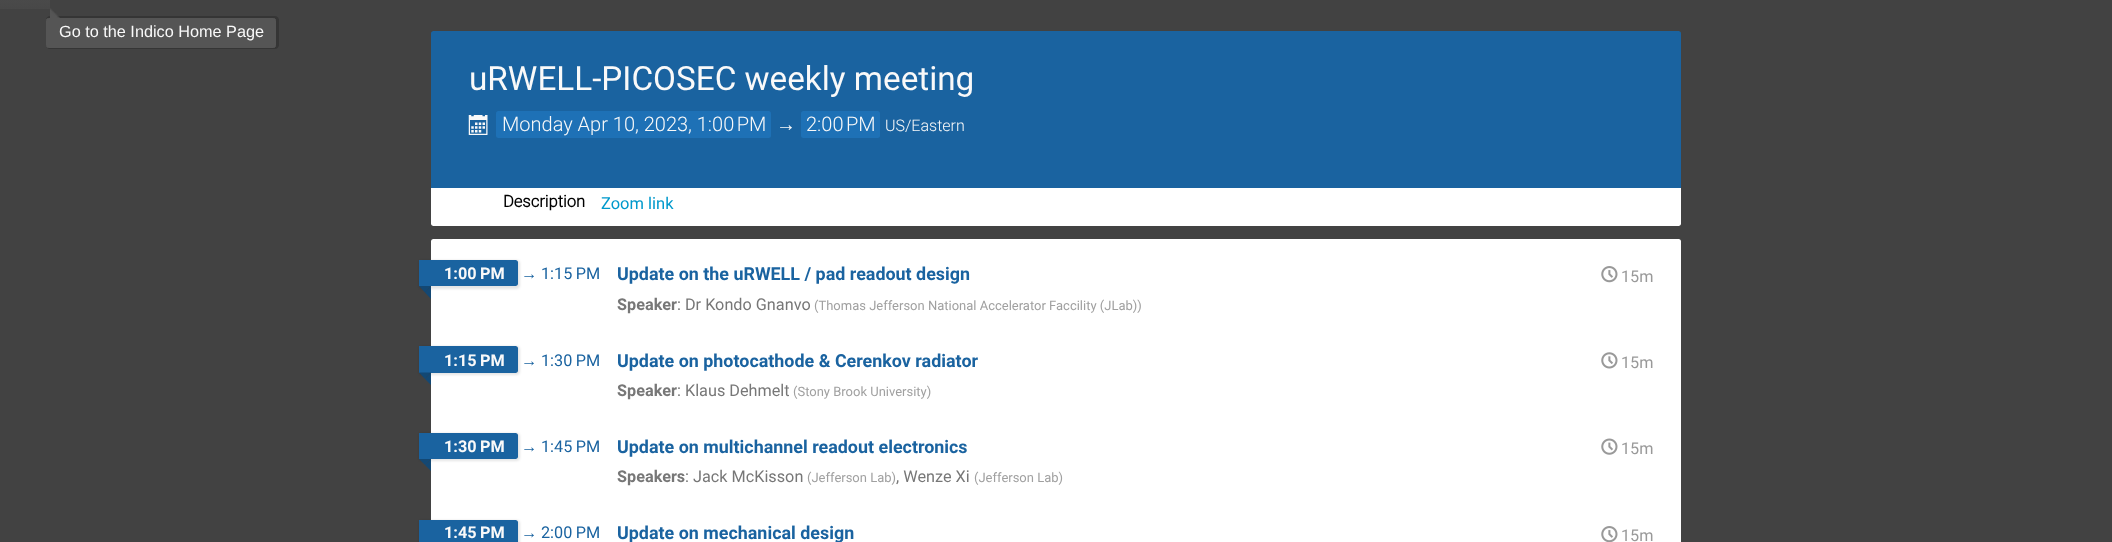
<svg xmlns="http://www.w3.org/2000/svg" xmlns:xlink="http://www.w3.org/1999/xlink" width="2112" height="542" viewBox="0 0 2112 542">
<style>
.cls-1{font:16.25px 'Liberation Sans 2';fill:#f9f9f9}
.cls-2{font:33.3px Roboto;fill:#f9f9f9}
.cls-3{font:300 20px Roboto;fill:#f9f9f9}
.cls-4{font:20px Liberation Sans;fill:#f9f9f9}
.cls-5{font:300 16px Roboto;fill:#f9f9f9}
.cls-6{font:bold 16.5px Roboto;fill:#000000}
.cls-7{font:16.5px Roboto;fill:#0099cc}
.cls-8{font:bold 16.25px 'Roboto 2';fill:#f9f9f9}
.cls-9{font:16.25px Liberation Sans;fill:#1a63a0}
.cls-10{font:16.25px Roboto;fill:#1a63a0}
.cls-11{font:bold 17.9px 'Roboto 2';fill:#1a63a0}
.cls-12{font:16.25px Roboto;fill:#999999}
.cls-13{font:bold 16.25px 'Roboto 2';fill:#777777}
.cls-14{font:16.25px Roboto;fill:#777777}
.cls-15{font:13px Roboto;fill:#a0a0a0}
</style>
<defs>
<linearGradient id="g1" gradientUnits="userSpaceOnUse" x1="25" y1="-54" x2="25" y2="9"><stop offset="0" stop-color="#555555"/><stop offset="1" stop-color="#484848"/></linearGradient>
</defs>
<rect width="100%" height="100%" fill="#424242"/>
<rect fill="url(#g1)" x="0" y="0" width="50" height="9"/>
<path fill="#353535" fill-rule="evenodd" d="M50 16C48 16 46 18 46 20V45C46 47 48 49 50 49H275C277 49 279 47 279 45V20C279 18 277 16 275 16ZM49 18C47 18 46 19 46 20V45C46 46 47 48 49 48H274C275 48 276 46 276 45V20C276 19 275 18 274 18Z"/>
<rect fill="#555555" stroke="#555555" x="46.5" y="18.5" width="229" height="29" rx="2"/>
<image xlink:href="image0.png" x="50" y="8" width="10" height="10"/>
<path fill="#1a63a0" d="M433.5 31H1678.5C1680 31 1681 32 1681 33.5V188H431V33.5C431 32 432 31 433.5 31Z"/>
<image xlink:href="image1.png" x="468" y="115" width="20" height="20"/>
<rect fill="#1e71b6" x="496" y="111" width="275" height="27" rx="2.5"/>
<rect fill="#1e71b6" x="801" y="111" width="79" height="27" rx="2.5"/>
<path fill="#ffffff" d="M431 188H1681V223.5C1681 225 1680 226 1678.5 226H433.5C432 226 431 225 431 223.5Z"/>
<rect fill="#ffffff" x="431" y="239" width="1250" height="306" rx="2.5"/>
<rect fill="#000000" fill-opacity="0.1" filter="blur(1px)" x="419" y="260" width="101" height="29" rx="4"/>
<path fill="#1a63a0" d="M419 260H515.5C517 260 518 261 518 262.5V283.5C518 285 517 286 515.5 286H419Z"/>
<path fill="#134874" d="M419 286H431L425 292.5Z"/>
<path fill="#134874" d="M431 286V299L425 292.5Z"/>
<image xlink:href="image2.png" x="1601" y="266" width="17" height="17"/>
<rect fill="#000000" fill-opacity="0.1" filter="blur(1px)" x="419" y="346" width="101" height="29" rx="4"/>
<path fill="#1a63a0" d="M419 346H515.5C517 346 518 347 518 348.5V370.5C518 372 517 373 515.5 373H419Z"/>
<path fill="#134874" d="M419 372.5H431L425 379Z"/>
<path fill="#134874" d="M431 372.5V385L425 379Z"/>
<image xlink:href="image3.png" x="1601" y="352" width="17" height="17"/>
<rect fill="#000000" fill-opacity="0.1" filter="blur(1px)" x="419" y="433" width="101" height="28" rx="4"/>
<path fill="#1a63a0" d="M419 433H515.5C517 433 518 434 518 435.5V456.5C518 458 517 459 515.5 459H419Z"/>
<path fill="#134874" d="M419 459H431L425 465Z"/>
<path fill="#134874" d="M431 459V471L425 465Z"/>
<image xlink:href="image4.png" x="1601" y="438" width="17" height="17"/>
<rect fill="#000000" fill-opacity="0.1" filter="blur(1px)" x="419" y="520" width="101" height="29" rx="4"/>
<path fill="#1a63a0" d="M419 520H515.5C517 520 518 521 518 522.5V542.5C518 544 517 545 515.5 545H419Z"/>
<image xlink:href="image5.png" x="1601" y="526" width="17" height="16"/>
<text class="cls-1" x="59" y="37">Go to the Indico Home Page</text>
<text class="cls-2" x="469" y="90">uRWELL-PICOSEC weekly meeting</text>
<text class="cls-3" x="502" y="131">Monday Apr 10, 2023, 1:00 PM</text>
<text class="cls-4" x="776" y="131">→</text>
<text class="cls-3" x="806" y="131">2:00 PM</text>
<text class="cls-5" x="885" y="131">US/Eastern</text>
<text class="cls-6" x="503" y="207">Description</text>
<text class="cls-7" x="601" y="209">Zoom link</text>
<text class="cls-8" x="444" y="279">1:00 PM</text>
<text class="cls-9" x="521" y="279">→</text>
<text class="cls-10" x="541" y="279">1:15 PM</text>
<text class="cls-11" x="617" y="280">Update on the uRWELL / pad readout design</text>
<text class="cls-12" x="1621" y="282">15m</text>
<text class="cls-13" x="617" y="310">Speaker</text>
<text class="cls-14" x="677" y="310">: Dr Kondo Gnanvo</text>
<text class="cls-15" x="814" y="310">(Thomas Jefferson National Accelerator Faccility (JLab))</text>
<text class="cls-8" x="444" y="366">1:15 PM</text>
<text class="cls-9" x="521" y="366">→</text>
<text class="cls-10" x="541" y="366">1:30 PM</text>
<text class="cls-11" x="617" y="367">Update on photocathode &amp; Cerenkov radiator</text>
<text class="cls-12" x="1621" y="368">15m</text>
<text class="cls-13" x="617" y="396">Speaker</text>
<text class="cls-14" x="677" y="396">: Klaus Dehmelt</text>
<text class="cls-15" x="793" y="396">(Stony Brook University)</text>
<text class="cls-8" x="444" y="452">1:30 PM</text>
<text class="cls-9" x="521" y="452">→</text>
<text class="cls-10" x="541" y="452">1:45 PM</text>
<text class="cls-11" x="617" y="453">Update on multichannel readout electronics</text>
<text class="cls-12" x="1621" y="454">15m</text>
<text class="cls-13" x="617" y="482">Speakers</text>
<text class="cls-14" x="685" y="482">: Jack McKisson</text>
<text class="cls-15" x="807" y="482">(Jefferson Lab)</text>
<text class="cls-14" x="896" y="482">, Wenze Xi</text>
<text class="cls-15" x="974" y="482">(Jefferson Lab)</text>
<text class="cls-8" x="444" y="538">1:45 PM</text>
<text class="cls-9" x="521" y="538">→</text>
<text class="cls-10" x="541" y="538">2:00 PM</text>
<text class="cls-11" x="617" y="539">Update on mechanical design</text>
<text class="cls-12" x="1621" y="541">15m</text>
</svg>
